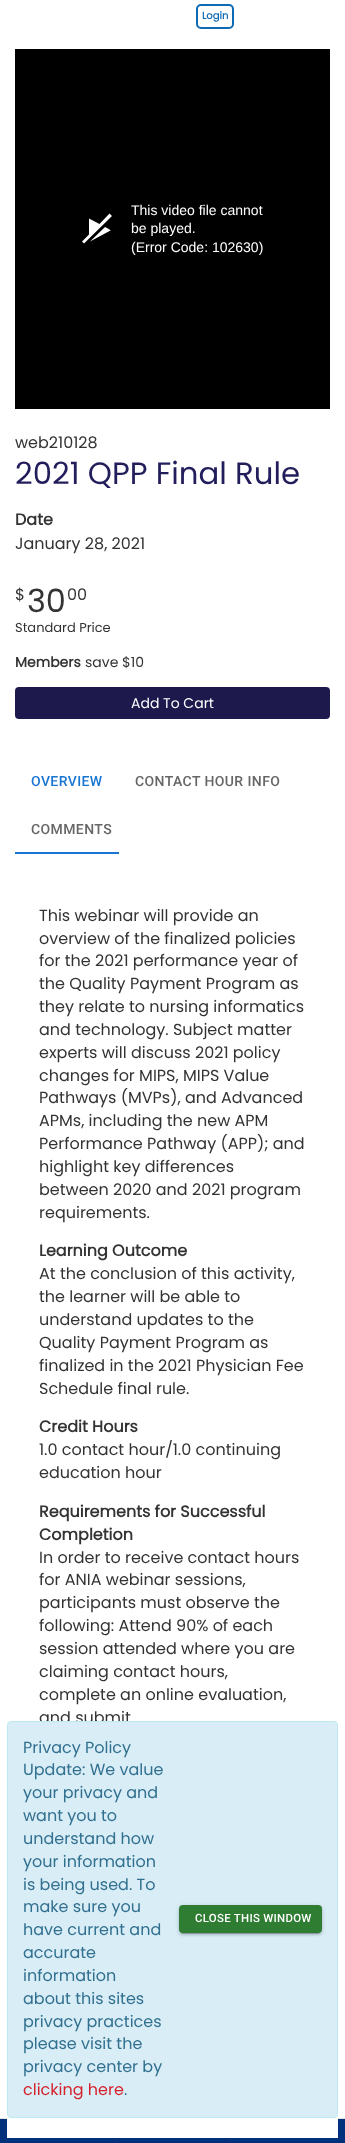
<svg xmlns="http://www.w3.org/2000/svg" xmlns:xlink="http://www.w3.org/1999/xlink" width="345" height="2143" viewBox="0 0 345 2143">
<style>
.cls-1{font:bold 10px Poppins;fill:#0f6ab4}
.cls-2{font:14px Liberation Sans;fill:#ffffff}
.cls-3{font:16px Poppins;fill:#333333}
.cls-4{font:30.75px Poppins;fill:#221d5b}
.cls-5{font:bold 16px Poppins;fill:#333333}
.cls-6{font:32px Poppins;fill:#333333}
.cls-7{font:13px Poppins;fill:#333333}
.cls-8{font:bold 14px Poppins;fill:#333333}
.cls-9{font:14px Poppins;fill:#333333}
.cls-10{font:14px Poppins;fill:#ffffff}
.cls-11{font:500 14px Roboto;letter-spacing:0.4px;fill:#1976d2}
.cls-12{font:500 14px Roboto;letter-spacing:0.4px;fill:#666666}
.cls-13{font:16px Poppins;fill:#31708f}
.cls-14{font:16px Poppins;fill:#d5222b}
.cls-15{font:500 11.4px Roboto;letter-spacing:0.3px;fill:#ffffff}
</style>
<rect width="100%" height="100%" fill="#ffffff"/>
<rect fill="none" stroke="#0f6ab4" stroke-width="2" x="197" y="5" width="36" height="23" rx="4"/>
<rect fill="#000000" x="15" y="49" width="315" height="360"/>
<path fill="#ffffff" d="M110.5 230.5L90 241.5L105 227C110.5 230 111.5 230.5 110.5 230.5ZM109.5 213.5L99.5 224L89 218.5V234.5L82 241.5L84 243.5L112 216Z"/>
<rect fill="#1d194d" x="15" y="687" width="315" height="32" rx="4"/>
<rect fill="#1976d2" x="15" y="852" width="104" height="2"/>
<rect fill="#e4e4e4" x="0" y="2118" width="345" height="1"/>
<rect fill="#00317d" x="0" y="2119" width="345" height="24"/>
<path fill="none" stroke="#143c78" stroke-dasharray="1 1" d="M115.5 2119V2143"/>
<path fill="none" stroke="#143c78" stroke-dasharray="1 1" d="M230.5 2119V2143"/>
<text class="cls-1" x="202" y="19">Login</text>
<text class="cls-2"><tspan x="131" y="215">This video file cannot</tspan><tspan x="131" y="233">be played.</tspan><tspan x="131" y="252">(Error Code: 102630)</tspan></text>
<text class="cls-3" x="15" y="448">web210128</text>
<text class="cls-4" x="15" y="484">2021 QPP Final Rule</text>
<text class="cls-5" x="15" y="525">Date</text>
<text class="cls-3" x="15" y="549">January 28, 2021</text>
<text class="cls-3" x="15" y="600">$</text>
<text class="cls-6" x="27" y="612">30</text>
<text class="cls-3" x="67" y="600">00</text>
<text class="cls-7" x="15" y="632">Standard Price</text>
<text class="cls-8" x="15" y="667">Members</text>
<text class="cls-9" x="85" y="667">save $10</text>
<text class="cls-10" x="131" y="708">Add To Cart</text>
<text class="cls-11" x="31" y="786">OVERVIEW</text>
<text class="cls-12" x="135" y="786">CONTACT HOUR INFO</text>
<text class="cls-12" x="31" y="834">COMMENTS</text>
<text class="cls-3"><tspan x="39" y="921">This webinar will provide an</tspan><tspan x="39" y="944">overview of the finalized policies</tspan><tspan x="39" y="966">for the 2021 performance year of</tspan><tspan x="39" y="989">the Quality Payment Program as</tspan><tspan x="39" y="1012">they relate to nursing informatics</tspan><tspan x="39" y="1035">and technology. Subject matter</tspan><tspan x="39" y="1058">experts will discuss 2021 policy</tspan><tspan x="39" y="1081">changes for MIPS, MIPS Value</tspan><tspan x="39" y="1103">Pathways (MVPs), and Advanced</tspan><tspan x="39" y="1126">APMs, including the new APM</tspan><tspan x="39" y="1149">Performance Pathway (APP); and</tspan><tspan x="39" y="1172">highlight key differences</tspan><tspan x="39" y="1195">between 2020 and 2021 program</tspan><tspan x="39" y="1218">requirements.</tspan></text>
<text class="cls-5" x="39" y="1256">Learning Outcome</text>
<text class="cls-3"><tspan x="39" y="1279">At the conclusion of this activity,</tspan><tspan x="39" y="1302">the learner will be able to</tspan><tspan x="39" y="1325">understand updates to the</tspan><tspan x="39" y="1348">Quality Payment Program as</tspan><tspan x="39" y="1371">finalized in the 2021 Physician Fee</tspan><tspan x="39" y="1394">Schedule final rule.</tspan></text>
<text class="cls-5" x="39" y="1432">Credit Hours</text>
<text class="cls-3"><tspan x="39" y="1455">1.0 contact hour/1.0 continuing</tspan><tspan x="39" y="1478">education hour</tspan></text>
<text class="cls-5"><tspan x="39" y="1517">Requirements for Successful</tspan><tspan x="39" y="1540">Completion</tspan></text>
<text class="cls-3"><tspan x="39" y="1563">In order to receive contact hours</tspan><tspan x="39" y="1585">for ANIA webinar sessions,</tspan><tspan x="39" y="1608">participants must observe the</tspan><tspan x="39" y="1631">following: Attend 90% of each</tspan><tspan x="39" y="1654">session attended where you are</tspan><tspan x="39" y="1677">claiming contact hours,</tspan><tspan x="39" y="1700">complete an online evaluation,</tspan><tspan x="39" y="1723">and submit</tspan></text>
<rect fill="#ffffff" x="7" y="1721" width="331" height="417"/>
<rect fill="#d9edf7" stroke="#bce8f1" x="7.5" y="1721.5" width="330" height="396" rx="3.5"/>
<text class="cls-13"><tspan x="23" y="1753">Privacy Policy</tspan><tspan x="23" y="1775">Update: We value</tspan><tspan x="23" y="1798">your privacy and</tspan><tspan x="23" y="1821">want you to</tspan><tspan x="23" y="1844">understand how</tspan><tspan x="23" y="1867">your information</tspan><tspan x="23" y="1890">is being used. To</tspan><tspan x="23" y="1912">make sure you</tspan><tspan x="23" y="1935">have current and</tspan><tspan x="23" y="1958">accurate</tspan><tspan x="23" y="1981">information</tspan><tspan x="23" y="2004">about this sites</tspan><tspan x="23" y="2027">privacy practices</tspan><tspan x="23" y="2049">please visit the</tspan><tspan x="23" y="2072">privacy center by</tspan></text>
<text class="cls-14" x="23" y="2095">clicking here</text>
<text class="cls-13" x="124" y="2095">.</text>
<rect fill="#000000" fill-opacity="0.12" filter="blur(2.5px)" x="179" y="1906" width="143" height="28" rx="4"/>
<rect fill="#000000" fill-opacity="0.14" filter="blur(1px)" x="179" y="1907" width="143" height="28" rx="4"/>
<rect fill="#000000" fill-opacity="0.2" filter="blur(0.5px)" x="181" y="1910" width="139" height="24" rx="2"/>
<rect fill="#2e7d32" x="179" y="1905" width="143" height="28" rx="4"/>
<text class="cls-15" x="195" y="1922">CLOSE THIS WINDOW</text>
</svg>
